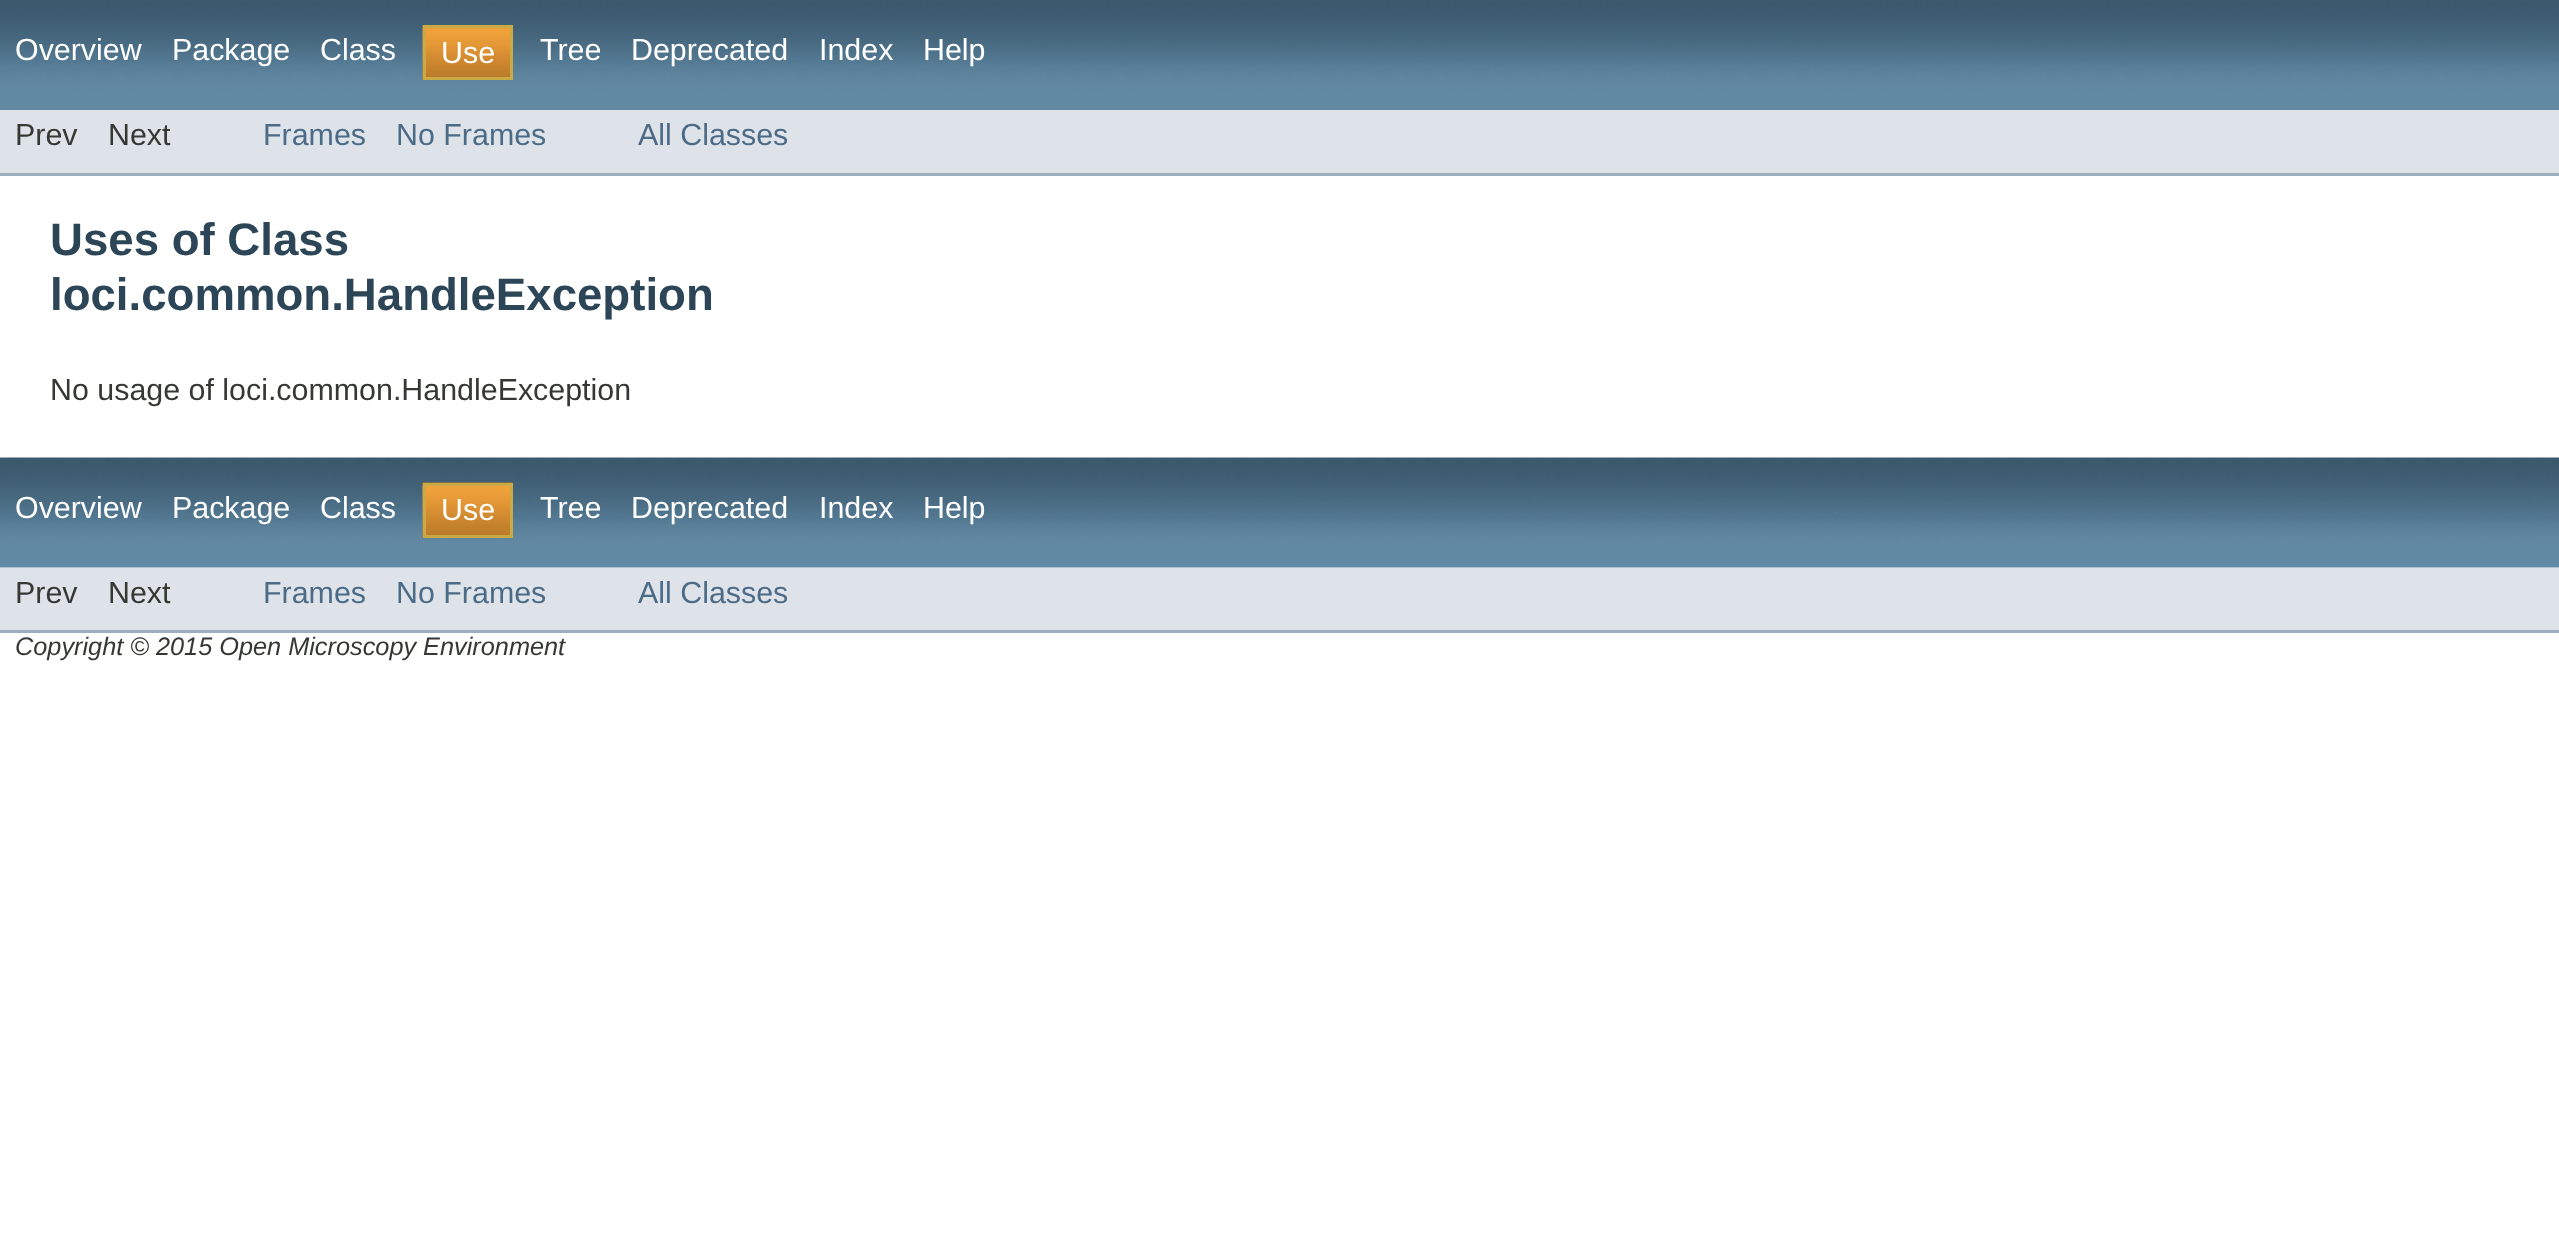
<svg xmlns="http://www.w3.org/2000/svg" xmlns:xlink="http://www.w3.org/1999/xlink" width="2559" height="1259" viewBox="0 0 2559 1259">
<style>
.cls-1{font:30.4px Liberation Sans;fill:#ffffff}
.cls-2{font:30.4px Liberation Sans;fill:#353833}
.cls-3{font:30.4px Liberation Sans;fill:#4c6b87}
.cls-4{font:bold 45.6px Liberation Sans;fill:#2c4557}
.cls-5{font:italic 25.3px Liberation Sans;fill:#353833}
</style>
<rect width="100%" height="100%" fill="#ffffff"/>
<image xlink:href="image0.png" x="0" y="0" width="2559" height="110"/>
<image xlink:href="image1.png" x="422" y="25" width="88" height="55"/>
<rect fill="none" stroke="#c9aa44" stroke-width="3" x="424.5" y="26.5" width="87" height="52"/>
<rect fill="#dee3e9" x="0" y="110" width="2559" height="63"/>
<rect fill="#9eadc0" x="0" y="173" width="2559" height="3"/>
<image xlink:href="image2.png" x="0" y="457" width="2559" height="111"/>
<image xlink:href="image3.png" x="422" y="482" width="91" height="56"/>
<rect fill="none" stroke="#c9aa44" stroke-width="3" x="424.5" y="484.5" width="87" height="52"/>
<rect fill="#dee3e9" x="0" y="568" width="2559" height="62"/>
<rect fill="#9eadc0" x="0" y="630" width="2559" height="3"/>
<text class="cls-1" x="15" y="60">Overview</text>
<text class="cls-1" x="172" y="60">Package</text>
<text class="cls-1" x="320" y="60">Class</text>
<text class="cls-1" x="441" y="63">Use</text>
<text class="cls-1" x="540" y="60">Tree</text>
<text class="cls-1" x="631" y="60">Deprecated</text>
<text class="cls-1" x="819" y="60">Index</text>
<text class="cls-1" x="923" y="60">Help</text>
<text class="cls-2" x="15" y="145">Prev</text>
<text class="cls-2" x="108" y="145">Next</text>
<text class="cls-3" x="263" y="145">Frames</text>
<text class="cls-3" x="396" y="145">No Frames</text>
<text class="cls-3" x="638" y="145">All Classes</text>
<text class="cls-4"><tspan x="50" y="255">Uses of Class</tspan><tspan x="50" y="310">loci.common.HandleException</tspan></text>
<text class="cls-2" x="50" y="400">No usage of loci.common.HandleException</text>
<text class="cls-1" x="15" y="518">Overview</text>
<text class="cls-1" x="172" y="518">Package</text>
<text class="cls-1" x="320" y="518">Class</text>
<text class="cls-1" x="441" y="520">Use</text>
<text class="cls-1" x="540" y="518">Tree</text>
<text class="cls-1" x="631" y="518">Deprecated</text>
<text class="cls-1" x="819" y="518">Index</text>
<text class="cls-1" x="923" y="518">Help</text>
<text class="cls-2" x="15" y="603">Prev</text>
<text class="cls-2" x="108" y="603">Next</text>
<text class="cls-3" x="263" y="603">Frames</text>
<text class="cls-3" x="396" y="603">No Frames</text>
<text class="cls-3" x="638" y="603">All Classes</text>
<text class="cls-5" x="15" y="655">Copyright © 2015 Open Microscopy Environment</text>
</svg>
